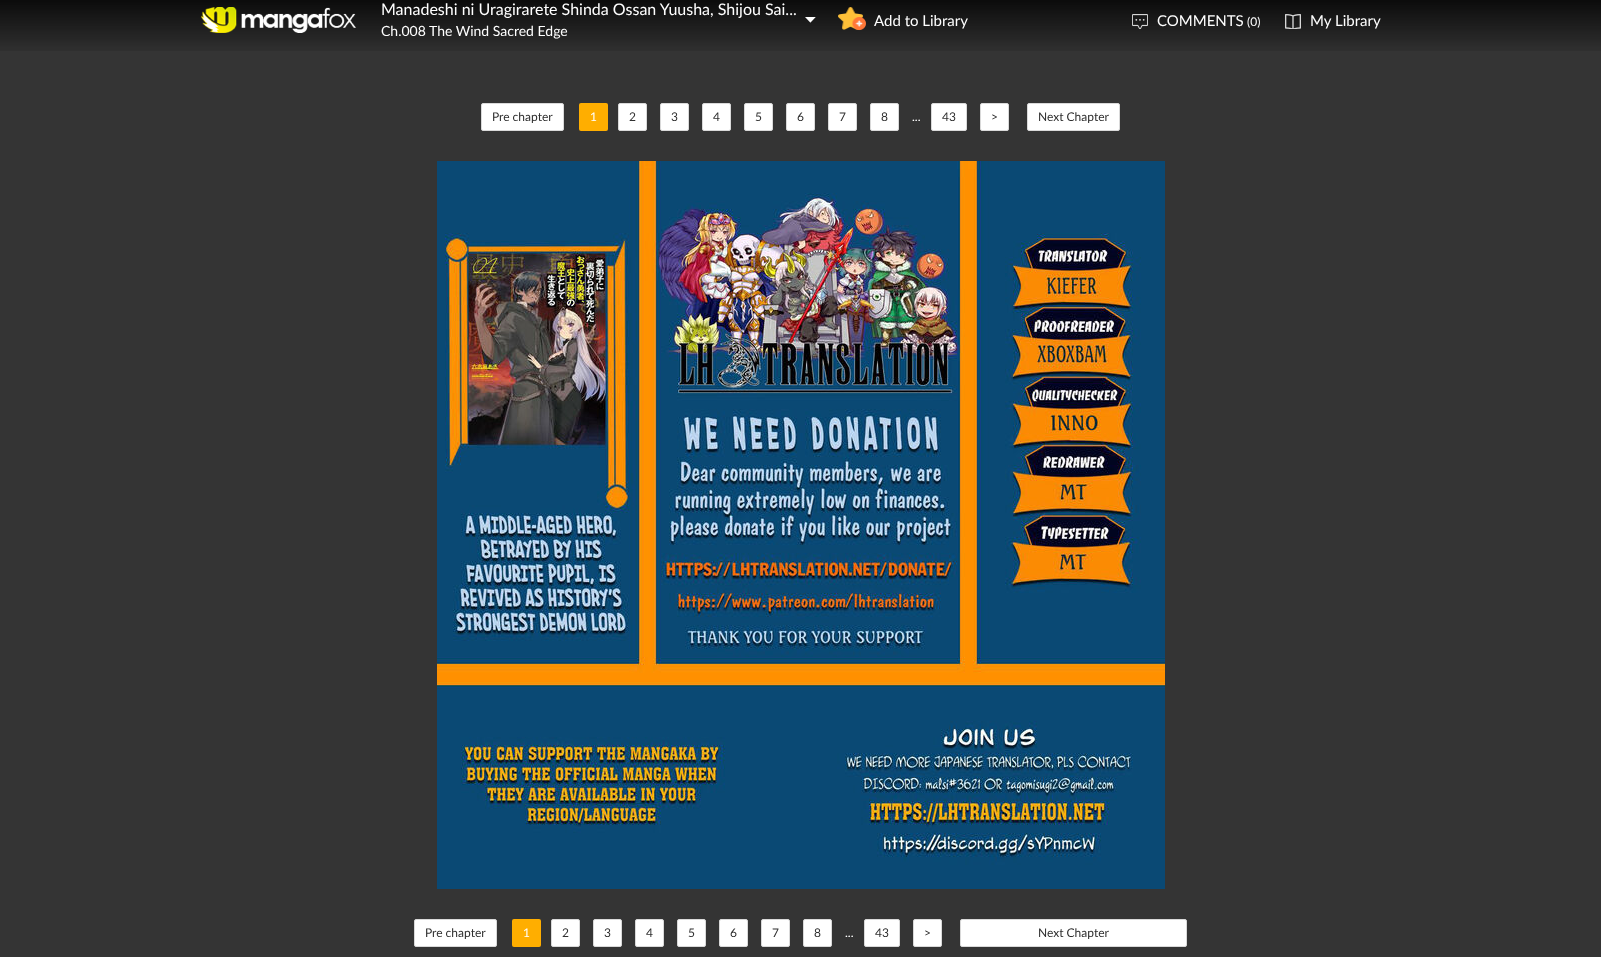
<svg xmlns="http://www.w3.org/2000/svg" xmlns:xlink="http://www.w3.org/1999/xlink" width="1601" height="957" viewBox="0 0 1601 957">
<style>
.cls-1{font:16px Lato;fill:#ffffff}
.cls-2{font:14px Lato;fill:#ffffff}
.cls-3{font:15px Lato;fill:#ffffff}
.cls-4{font:12px Lato;fill:#ffffff}
.cls-5{font:12px Lato;fill:#2f2f2f}
</style>
<rect width="100%" height="100%" fill="#343434"/>
<image xlink:href="image0.png" x="0" y="0" width="1601" height="51"/>
<image xlink:href="image1.png" x="201" y="7" width="155" height="26"/>
<image xlink:href="image2.png" x="805" y="17" width="11" height="6"/>
<image xlink:href="image3.png" x="838" y="7" width="28" height="24"/>
<image xlink:href="image4.png" x="1132" y="14" width="16" height="15"/>
<image xlink:href="image5.png" x="1285" y="14" width="16" height="15"/>
<rect fill="#ffffff" stroke="#d9d9d9" x="481.5" y="103.5" width="82" height="27" rx="1.5"/>
<rect fill="#ffae00" x="579" y="103" width="29" height="28" rx="2"/>
<rect fill="#ffffff" stroke="#d9d9d9" x="618.5" y="103.5" width="28" height="27" rx="1.5"/>
<rect fill="#ffffff" stroke="#d9d9d9" x="660.5" y="103.5" width="28" height="27" rx="1.5"/>
<rect fill="#ffffff" stroke="#d9d9d9" x="702.5" y="103.5" width="28" height="27" rx="1.5"/>
<rect fill="#ffffff" stroke="#d9d9d9" x="744.5" y="103.5" width="28" height="27" rx="1.5"/>
<rect fill="#ffffff" stroke="#d9d9d9" x="786.5" y="103.5" width="28" height="27" rx="1.5"/>
<rect fill="#ffffff" stroke="#d9d9d9" x="828.5" y="103.5" width="28" height="27" rx="1.5"/>
<rect fill="#ffffff" stroke="#d9d9d9" x="870.5" y="103.5" width="28" height="27" rx="1.5"/>
<rect fill="#ffffff" stroke="#d9d9d9" x="931.5" y="103.5" width="35" height="27" rx="1.5"/>
<rect fill="#ffffff" stroke="#d9d9d9" x="980.5" y="103.5" width="28" height="27" rx="1.5"/>
<rect fill="#ffffff" stroke="#d9d9d9" x="1027.5" y="103.5" width="92" height="27" rx="1.5"/>
<image xlink:href="image6.png" x="437" y="161" width="728" height="728"/>
<rect fill="#ffffff" stroke="#d9d9d9" x="414.5" y="919.5" width="82" height="27" rx="1.5"/>
<rect fill="#ffae00" x="512" y="919" width="29" height="28" rx="2"/>
<rect fill="#ffffff" stroke="#d9d9d9" x="551.5" y="919.5" width="28" height="27" rx="1.5"/>
<rect fill="#ffffff" stroke="#d9d9d9" x="593.5" y="919.5" width="28" height="27" rx="1.5"/>
<rect fill="#ffffff" stroke="#d9d9d9" x="635.5" y="919.5" width="28" height="27" rx="1.5"/>
<rect fill="#ffffff" stroke="#d9d9d9" x="677.5" y="919.5" width="28" height="27" rx="1.5"/>
<rect fill="#ffffff" stroke="#d9d9d9" x="719.5" y="919.5" width="28" height="27" rx="1.5"/>
<rect fill="#ffffff" stroke="#d9d9d9" x="761.5" y="919.5" width="28" height="27" rx="1.5"/>
<rect fill="#ffffff" stroke="#d9d9d9" x="803.5" y="919.5" width="28" height="27" rx="1.5"/>
<rect fill="#ffffff" stroke="#d9d9d9" x="864.5" y="919.5" width="35" height="27" rx="1.5"/>
<rect fill="#ffffff" stroke="#d9d9d9" x="913.5" y="919.5" width="28" height="27" rx="1.5"/>
<rect fill="#ffffff" stroke="#d9d9d9" x="960.5" y="919.5" width="226" height="27" rx="1.5"/>
<text class="cls-1" x="381" y="15">Manadeshi ni Uragirarete Shinda Ossan Yuusha, Shijou Sai...</text>
<text class="cls-2" x="381" y="36">Ch.008 The Wind Sacred Edge</text>
<text class="cls-3" x="874" y="26">Add to Library</text>
<text class="cls-3" x="1157" y="26">COMMENTS</text>
<text class="cls-4" x="1247" y="26">(0)</text>
<text class="cls-3" x="1310" y="26">My Library</text>
<text class="cls-5" x="492" y="121">Pre chapter</text>
<text class="cls-4" x="590" y="121">1</text>
<text class="cls-5" x="629" y="121">2</text>
<text class="cls-5" x="671" y="121">3</text>
<text class="cls-5" x="713" y="121">4</text>
<text class="cls-5" x="755" y="121">5</text>
<text class="cls-5" x="797" y="121">6</text>
<text class="cls-5" x="839" y="121">7</text>
<text class="cls-5" x="881" y="121">8</text>
<text class="cls-5" x="942" y="121">43</text>
<text class="cls-5" x="991" y="121">&gt;</text>
<text class="cls-4" x="912" y="121">...</text>
<text class="cls-5" x="1038" y="121">Next Chapter</text>
<text class="cls-5" x="425" y="937">Pre chapter</text>
<text class="cls-4" x="523" y="937">1</text>
<text class="cls-5" x="562" y="937">2</text>
<text class="cls-5" x="604" y="937">3</text>
<text class="cls-5" x="646" y="937">4</text>
<text class="cls-5" x="688" y="937">5</text>
<text class="cls-5" x="730" y="937">6</text>
<text class="cls-5" x="772" y="937">7</text>
<text class="cls-5" x="814" y="937">8</text>
<text class="cls-5" x="875" y="937">43</text>
<text class="cls-5" x="924" y="937">&gt;</text>
<text class="cls-4" x="845" y="937">...</text>
<text class="cls-5" x="1038" y="937">Next Chapter</text>
</svg>
